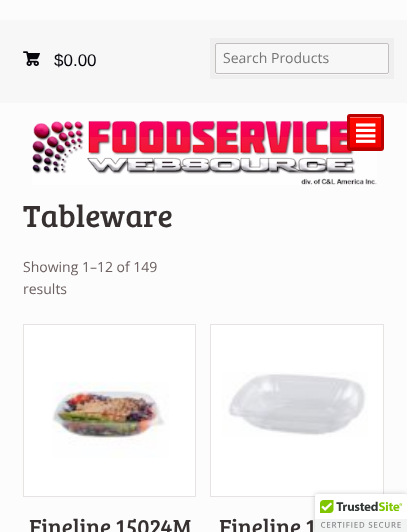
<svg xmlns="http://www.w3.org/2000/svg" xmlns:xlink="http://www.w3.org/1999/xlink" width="407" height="532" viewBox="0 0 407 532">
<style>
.cls-1{font:17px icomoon;fill:#07060d}
.cls-2{font:17px Liberation Sans;fill:#07060d}
.cls-3{font:14px Open Sans;fill:#757575}
.cls-4{font:31.5px Bree Serif;fill:#363030}
.cls-5{font:14px Open Sans;fill:#6c6060}
.cls-6{font:22.75px Bree Serif;fill:#363030}
</style>
<defs>
<linearGradient id="g1" gradientUnits="userSpaceOnUse" x1="366" y1="117" x2="366" y2="148"><stop offset="0" stop-color="#ff0c00"/><stop offset="1" stop-color="#ee0000"/></linearGradient>
</defs>
<rect width="100%" height="100%" fill="#fcfcfc"/>
<rect fill="#f7f7f7" x="0" y="20" width="407" height="83"/>
<path fill="#ffffff" d="M215 72C215 74 215 75 217 75H387C389 75 389 74 389 72C389 73 388 74 387 74H217C216 74 215 73 215 72Z"/>
<rect fill="none" stroke="#000000" stroke-opacity="0.03" stroke-width="5" x="212.5" y="40.5" width="179" height="36"/>
<rect fill="none" stroke="#c4bfbf" x="215.5" y="43.5" width="173" height="30" rx="1.5"/>
<image xlink:href="image1.png" x="32" y="120" width="345" height="65"/>
<rect fill="url(#g1)" x="350" y="118" width="31" height="29"/>
<rect fill="#cc0000" x="350" y="147" width="31" height="1"/>
<rect fill="#ff6d66" x="350" y="117" width="31" height="1"/>
<rect fill="none" stroke="#bb0000" stroke-width="3" x="348.5" y="115.5" width="34" height="34" rx="1.5"/>
<image xlink:href="image0.png" x="356" y="123" width="20" height="20"/>
<rect fill="#ffffff" stroke="#e8e3e3" x="23.5" y="324.5" width="172" height="172"/>
<image xlink:href="image2.png" x="52" y="382" width="117" height="76"/>
<rect fill="#ffffff" stroke="#e8e3e3" x="210.5" y="324.5" width="173" height="172"/>
<image xlink:href="image3.png" x="222" y="372" width="146" height="65"/>
<rect fill="#000000" fill-opacity="0.2" filter="blur(2.5px)" x="315" y="494" width="92" height="38" rx="2"/>
<path fill="#ffffff" d="M317 494H407V532H315V496C315 495 316 494 317 494Z"/>
<image xlink:href="image4.png" x="315" y="494" width="92" height="38"/>
<text class="cls-1" x="23" y="66">£</text>
<text class="cls-2" x="54" y="66">$0.00</text>
<text class="cls-3" x="223" y="63">Search Products</text>
<text class="cls-4" x="23" y="227">Tableware</text>
<text class="cls-5"><tspan x="23" y="272">Showing 1–12 of 149</tspan><tspan x="23" y="294">results</tspan></text>
<text class="cls-6" x="29" y="535">Fineline 15024M</text>
<text class="cls-6" x="219" y="535">Fineline 1</text>
</svg>
